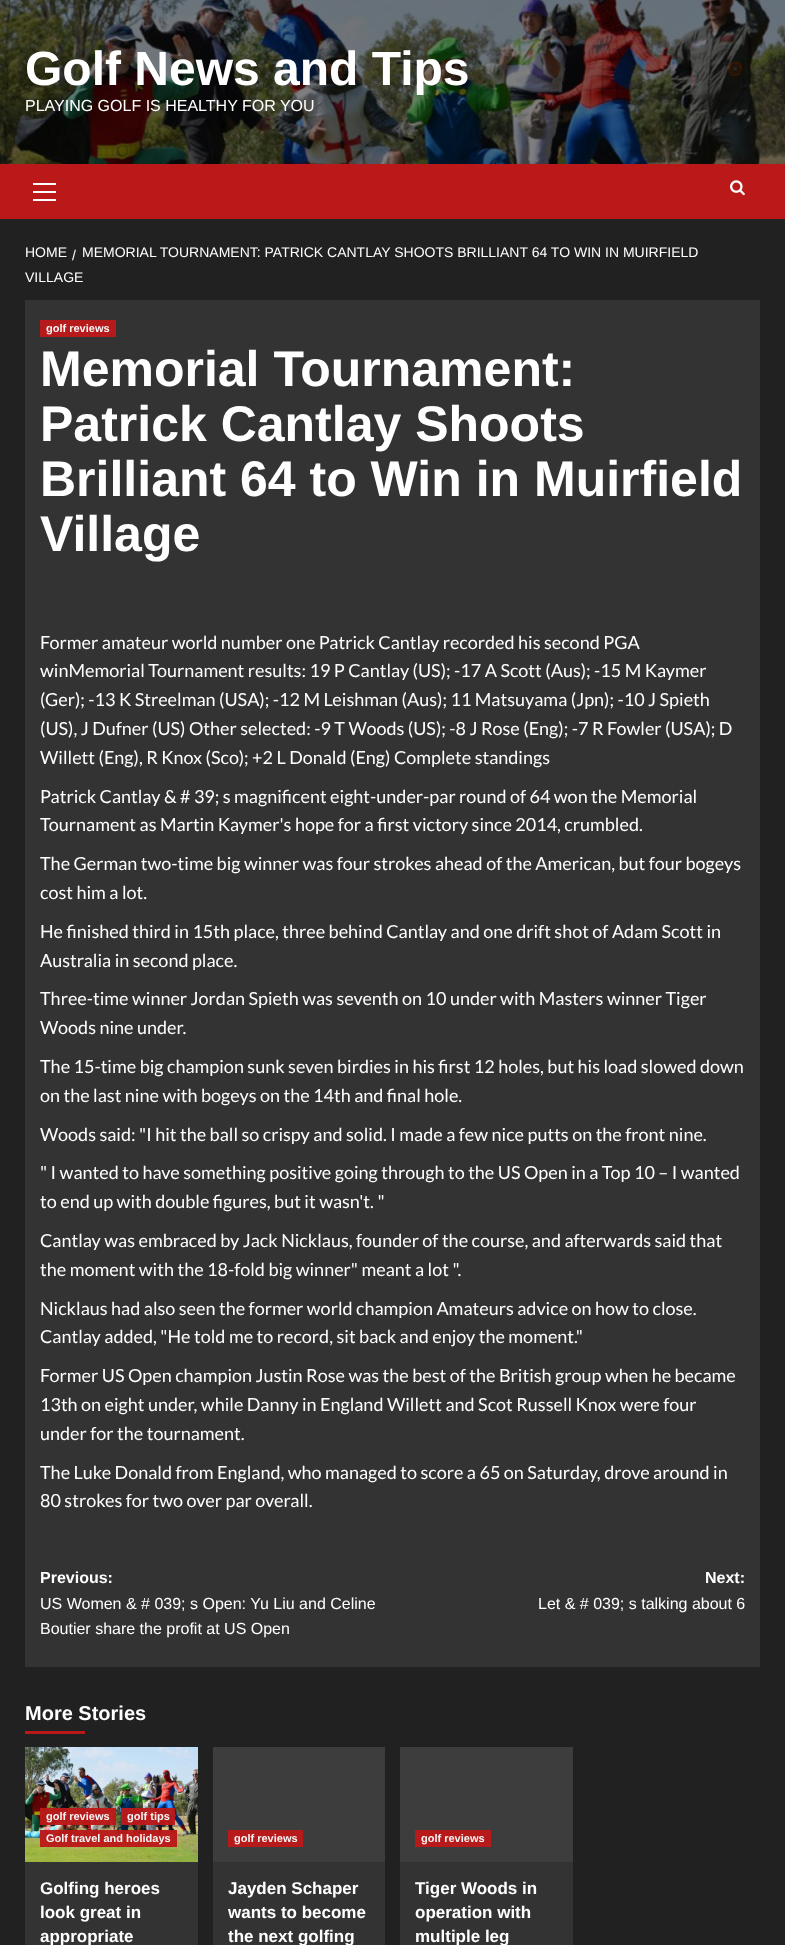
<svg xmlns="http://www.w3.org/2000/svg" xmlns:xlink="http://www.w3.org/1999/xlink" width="785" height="1945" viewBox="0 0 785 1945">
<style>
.cls-1{font:bold 48px Liberation Sans;fill:#ffffff}
.cls-2{font:16px Liberation Sans;fill:#ffffff}
.cls-3{font:14px Liberation Sans;fill:#ffffff}
.cls-4{font:bold 11px Liberation Sans;fill:#f7f7f7}
.cls-5{font:bold 50px Liberation Sans;fill:#ffffff}
.cls-6{font:18px Lato;fill:#ffffff}
.cls-7{font:bold 16px Liberation Sans;fill:#ffffff}
.cls-8{font:bold 20px Liberation Sans;fill:#ffffff}
.cls-9{font:bold 17px Liberation Sans;fill:#ffffff}
</style>
<rect width="100%" height="100%" fill="#212121"/>
<image xlink:href="image0.png" x="0" y="0" width="785" height="164"/>
<rect fill="#bb1919" x="0" y="164" width="785" height="55"/>
<rect fill="#ffffff" x="33" y="191" width="23" height="2"/>
<rect fill="#ffffff" x="33" y="183" width="23" height="2"/>
<rect fill="#ffffff" x="33" y="199" width="23" height="2"/>
<image xlink:href="image1.png" x="730" y="180" width="15" height="16"/>
<rect fill="#333333" x="25" y="300" width="735" height="1367"/>
<rect fill="#b61a1a" x="40" y="320" width="76" height="17"/>
<rect fill="#bb1919" x="25" y="1731" width="60" height="3"/>
<rect fill="#333333" x="25" y="1862" width="173" height="83"/>
<image xlink:href="image2.png" x="25" y="1747" width="173" height="115"/>
<rect fill="#bb1919" fill-opacity="0.96" x="40" y="1808" width="76" height="17"/>
<rect fill="#bb1919" fill-opacity="0.96" x="121" y="1808" width="54" height="17"/>
<rect fill="#bb1919" fill-opacity="0.96" x="40" y="1830" width="137" height="17"/>
<rect fill="#333333" x="213" y="1862" width="172" height="83"/>
<rect fill="#3d3d3d" x="213" y="1747" width="172" height="115"/>
<rect fill="#b61a1a" x="228" y="1830" width="75" height="17"/>
<rect fill="#333333" x="400" y="1862" width="173" height="83"/>
<rect fill="#3d3d3d" x="400" y="1747" width="173" height="115"/>
<rect fill="#b61a1a" x="415" y="1830" width="76" height="17"/>
<text class="cls-1" x="25" y="85">Golf News and Tips</text>
<text class="cls-2" x="25" y="111">PLAYING GOLF IS HEALTHY FOR YOU</text>
<text class="cls-3" x="72" y="260">/</text>
<text class="cls-3" x="82" y="257">MEMORIAL TOURNAMENT: PATRICK CANTLAY SHOOTS BRILLIANT 64 TO WIN IN MUIRFIELD</text>
<text class="cls-3" x="25" y="282">VILLAGE</text>
<text class="cls-3" x="25" y="257">HOME</text>
<text class="cls-4" x="46" y="332">golf reviews</text>
<text class="cls-5"><tspan x="40" y="386">Memorial Tournament:</tspan><tspan x="40" y="441">Patrick Cantlay Shoots</tspan><tspan x="40" y="496">Brilliant 64 to Win in Muirfield</tspan><tspan x="40" y="551">Village</tspan></text>
<text class="cls-6"><tspan x="40" y="649">Former amateur world number one Patrick Cantlay recorded his second PGA</tspan><tspan x="40" y="677">winMemorial Tournament results: 19 P Cantlay (US); -17 A Scott (Aus); -15 M Kaymer</tspan><tspan x="40" y="706">(Ger); -13 K Streelman (USA); -12 M Leishman (Aus); 11 Matsuyama (Jpn); -10 J Spieth</tspan><tspan x="40" y="735">(US), J Dufner (US) Other selected: -9 T Woods (US); -8 J Rose (Eng); -7 R Fowler (USA); D</tspan><tspan x="40" y="764">Willett (Eng), R Knox (Sco); +2 L Donald (Eng) Complete standings</tspan></text>
<text class="cls-6"><tspan x="40" y="803">Patrick Cantlay &amp; # 39; s magnificent eight-under-par round of 64 won the Memorial</tspan><tspan x="40" y="831">Tournament as Martin Kaymer's hope for a first victory since 2014, crumbled.</tspan></text>
<text class="cls-6"><tspan x="40" y="870">The German two-time big winner was four strokes ahead of the American, but four bogeys</tspan><tspan x="40" y="899">cost him a lot.</tspan></text>
<text class="cls-6"><tspan x="40" y="938">He finished third in 15th place, three behind Cantlay and one drift shot of Adam Scott in</tspan><tspan x="40" y="967">Australia in second place.</tspan></text>
<text class="cls-6"><tspan x="40" y="1005">Three-time winner Jordan Spieth was seventh on 10 under with Masters winner Tiger</tspan><tspan x="40" y="1034">Woods nine under.</tspan></text>
<text class="cls-6"><tspan x="40" y="1073">The 15-time big champion sunk seven birdies in his first 12 holes, but his load slowed down</tspan><tspan x="40" y="1102">on the last nine with bogeys on the 14th and final hole.</tspan></text>
<text class="cls-6" x="40" y="1141">Woods said: "I hit the ball so crispy and solid. I made a few nice putts on the front nine.</text>
<text class="cls-6"><tspan x="40" y="1179">" I wanted to have something positive going through to the US Open in a Top 10 – I wanted</tspan><tspan x="40" y="1208">to end up with double figures, but it wasn't. "</tspan></text>
<text class="cls-6"><tspan x="40" y="1247">Cantlay was embraced by Jack Nicklaus, founder of the course, and afterwards said that</tspan><tspan x="40" y="1276">the moment with the 18-fold big winner" meant a lot ".</tspan></text>
<text class="cls-6"><tspan x="40" y="1315">Nicklaus had also seen the former world champion Amateurs advice on how to close.</tspan><tspan x="40" y="1343">Cantlay added, "He told me to record, sit back and enjoy the moment."</tspan></text>
<text class="cls-6"><tspan x="40" y="1382">Former US Open champion Justin Rose was the best of the British group when he became</tspan><tspan x="40" y="1411">13th on eight under, while Danny in England Willett and Scot Russell Knox were four</tspan><tspan x="40" y="1440">under for the tournament.</tspan></text>
<text class="cls-6"><tspan x="40" y="1479">The Luke Donald from England, who managed to score a 65 on Saturday, drove around in</tspan><tspan x="40" y="1507">80 strokes for two over par overall.</tspan></text>
<text class="cls-7" x="40" y="1583">Previous:</text>
<text class="cls-2"><tspan x="40" y="1609">US Women &amp; # 039; s Open: Yu Liu and Celine</tspan><tspan x="40" y="1634">Boutier share the profit at US Open</tspan></text>
<text class="cls-7" x="705" y="1583">Next:</text>
<text class="cls-2" x="538" y="1609">Let &amp; # 039; s talking about 6</text>
<text class="cls-8" x="25" y="1720">More Stories</text>
<text class="cls-4" x="46" y="1820">golf reviews</text>
<text class="cls-4" x="127" y="1820">golf tips</text>
<text class="cls-4" x="46" y="1842">Golf travel and holidays</text>
<text class="cls-9"><tspan x="40" y="1894">Golfing heroes</tspan><tspan x="40" y="1918">look great in</tspan><tspan x="40" y="1942">appropriate</tspan></text>
<text class="cls-4" x="234" y="1842">golf reviews</text>
<text class="cls-9"><tspan x="228" y="1894">Jayden Schaper</tspan><tspan x="228" y="1918">wants to become</tspan><tspan x="228" y="1942">the next golfing</tspan></text>
<text class="cls-4" x="421" y="1842">golf reviews</text>
<text class="cls-9"><tspan x="415" y="1894">Tiger Woods in</tspan><tspan x="415" y="1918">operation with</tspan><tspan x="415" y="1942">multiple leg</tspan></text>
</svg>
